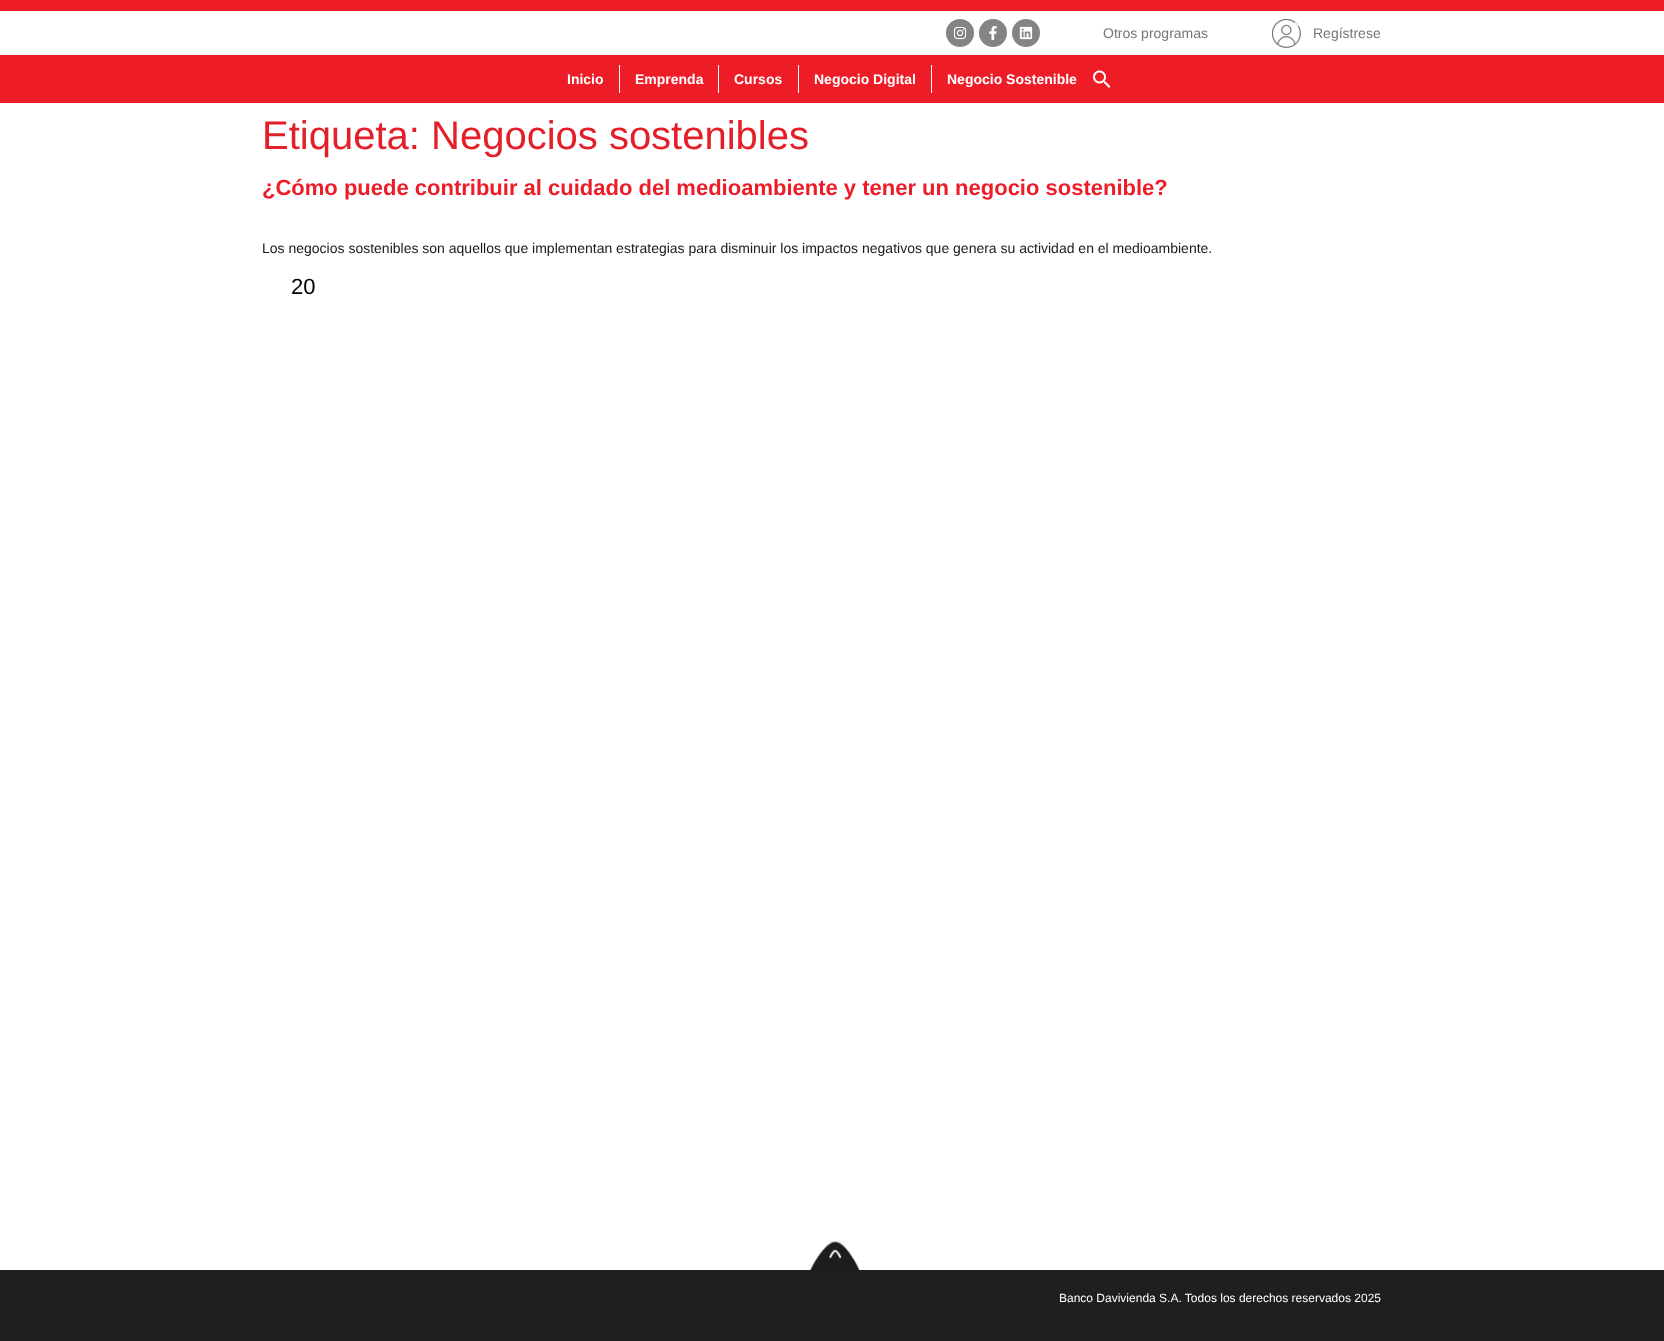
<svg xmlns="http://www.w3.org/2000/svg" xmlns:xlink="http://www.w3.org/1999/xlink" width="1664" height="1341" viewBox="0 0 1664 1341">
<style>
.cls-1{font:14px Liberation Sans;fill:#767676}
.cls-2{font:bold 14px Liberation Sans;fill:#ffffff}
.cls-3{font:40px Liberation Sans;fill:#e32029}
.cls-4{font:bold 22px Liberation Sans;fill:#ed1c27}
.cls-5{font:14px Liberation Sans;fill:#1a1a1a}
.cls-6{font:22px Liberation Sans;fill:#000000}
.cls-7{font:12px Liberation Sans;fill:#ffffff}
</style>
<rect width="100%" height="100%" fill="#ffffff"/>
<rect fill="#ed1c27" x="0" y="0" width="1664" height="11"/>
<circle fill="#858484" cx="960" cy="33" r="14"/>
<image xlink:href="image0.png" x="953" y="26" width="14" height="14"/>
<circle fill="#858484" cx="993" cy="33" r="14"/>
<image xlink:href="image1.png" x="989" y="26" width="8" height="14"/>
<circle fill="#858484" cx="1026" cy="33" r="14"/>
<image xlink:href="image2.png" x="1019" y="26" width="14" height="14"/>
<image xlink:href="image3.png" x="1272" y="19" width="29" height="29"/>
<rect fill="#ed1c27" x="0" y="55" width="1664" height="48"/>
<rect fill="#ffffff" x="619" y="65" width="1" height="28"/>
<rect fill="#ffffff" x="718" y="65" width="1" height="28"/>
<rect fill="#ffffff" x="798" y="65" width="1" height="28"/>
<rect fill="#ffffff" x="931" y="65" width="1" height="28"/>
<image xlink:href="image4.png" x="1093" y="70" width="18" height="18"/>
<rect fill="#1f1f1f" x="0" y="1270" width="1664" height="71"/>
<image xlink:href="image5.png" x="810" y="1241" width="50" height="29"/>
<text class="cls-1" x="1103" y="38">Otros programas</text>
<text class="cls-1" x="1313" y="38">Regístrese</text>
<text class="cls-2" x="567" y="84">Inicio</text>
<text class="cls-2" x="635" y="84">Emprenda</text>
<text class="cls-2" x="734" y="84">Cursos</text>
<text class="cls-2" x="814" y="84">Negocio Digital</text>
<text class="cls-2" x="947" y="84">Negocio Sostenible</text>
<text class="cls-3" x="262" y="149">Etiqueta: Negocios sostenibles</text>
<text class="cls-4" x="262" y="195">¿Cómo puede contribuir al cuidado del medioambiente y tener un negocio sostenible?</text>
<text class="cls-5" x="262" y="253">Los negocios sostenibles son aquellos que implementan estrategias para disminuir los impactos negativos que genera su actividad en el medioambiente.</text>
<text class="cls-6" x="291" y="294">20</text>
<text class="cls-7" x="1059" y="1302">Banco Davivienda S.A. Todos los derechos reservados 2025</text>
</svg>
